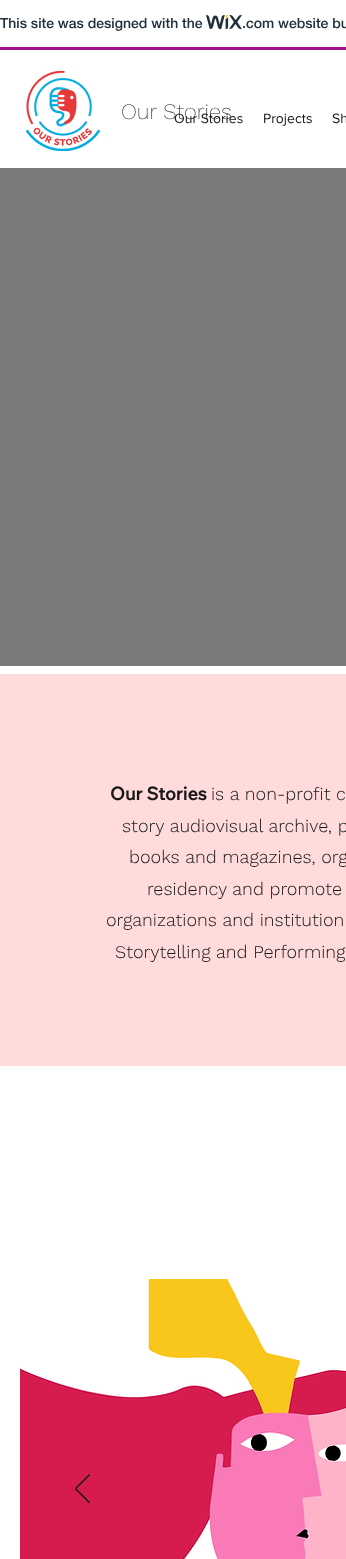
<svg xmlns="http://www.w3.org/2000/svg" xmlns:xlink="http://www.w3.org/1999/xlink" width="346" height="1559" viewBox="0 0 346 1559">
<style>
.cls-1{font:500 14px 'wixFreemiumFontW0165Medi';fill:#20303c}
.cls-2{font:200 22px Work Sans;fill:#181818}
.cls-3{font:14px 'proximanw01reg';fill:#181818}
.cls-4{font:bold 18px Wix Madefor Text;fill:#181818}
.cls-5{font:300 18px Work Sans;fill:#181818}
</style>
<rect width="100%" height="100%" fill="#ffffff"/>
<rect fill="#a0138e" x="0" y="47" width="346" height="3"/>
<image xlink:href="image0.png" x="206" y="15" width="36" height="15"/>
<image xlink:href="image1.png" x="26" y="71" width="74" height="80"/>
<rect fill="#7a7a7a" x="0" y="168" width="346" height="498"/>
<rect fill="#ffdbdb" x="0" y="674" width="346" height="392"/>
<image xlink:href="image2.png" x="20" y="1279" width="326" height="280"/>
<image xlink:href="image3.png" x="75" y="1474" width="15" height="29"/>
<text class="cls-1" x="0" y="28">This site was designed with the</text>
<text class="cls-1" x="242" y="28">.com website bu</text>
<text class="cls-2" x="121" y="119">Our Stories</text>
<text class="cls-3" x="174" y="123">Our Stories</text>
<text class="cls-3" x="263" y="123">Projects</text>
<text class="cls-3" x="332" y="123">Sh</text>
<text class="cls-4" x="110" y="800">Our Stories</text>
<text class="cls-5" x="211" y="800">is a non-profit c</text>
<text class="cls-5" x="122" y="832">story audiovisual archive, p</text>
<text class="cls-5" x="129" y="863">books and magazines, org</text>
<text class="cls-5" x="147" y="895">residency and promote</text>
<text class="cls-5" x="106" y="926">organizations and institution</text>
<text class="cls-5" x="115" y="958">Storytelling and Performing</text>
</svg>
